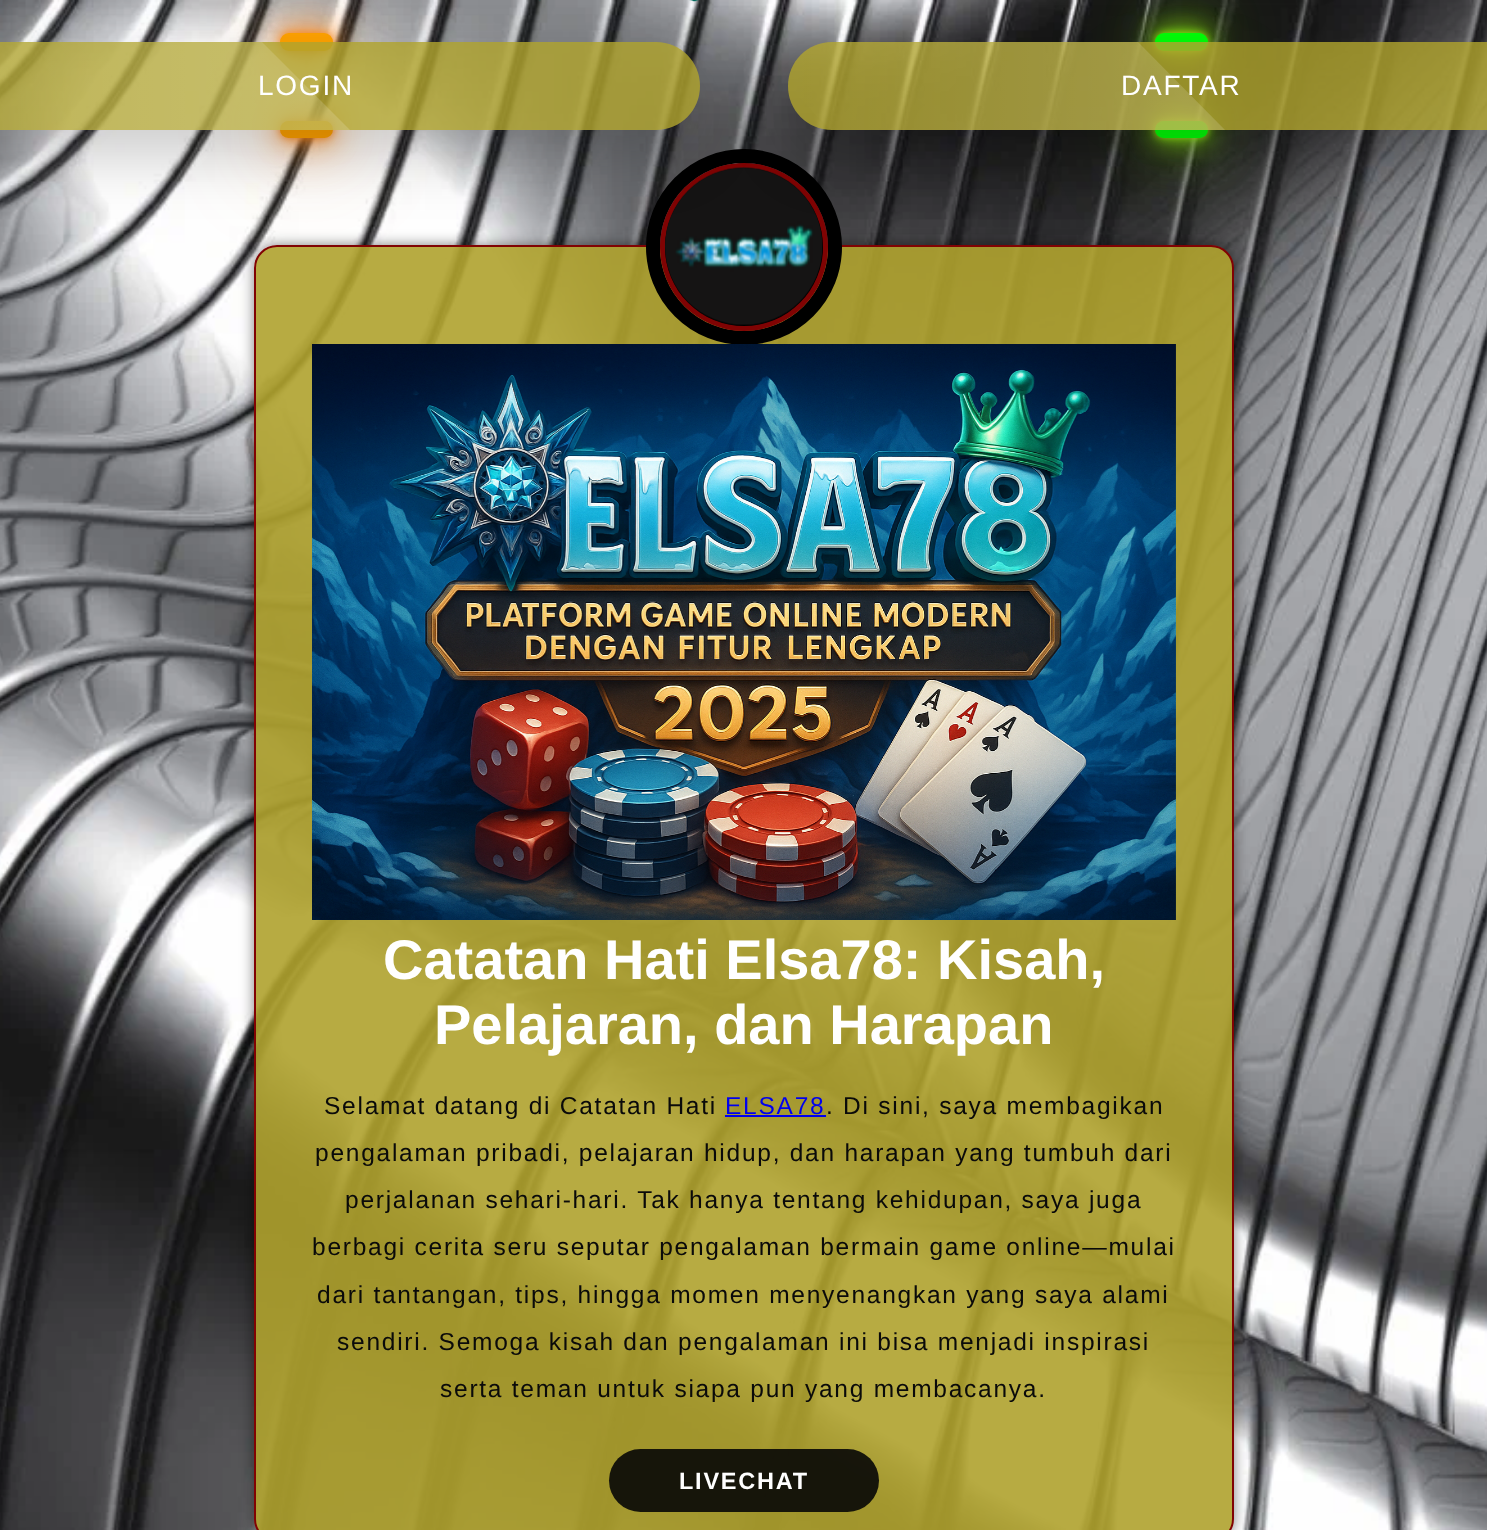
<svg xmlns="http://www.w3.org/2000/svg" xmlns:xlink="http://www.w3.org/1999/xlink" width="1487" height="1530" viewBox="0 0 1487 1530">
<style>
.cls-1{font:28px Liberation Sans;letter-spacing:1.75px;fill:#ffffff}
.cls-2{font:bold 56px Liberation Sans;fill:#ffffff}
.cls-3{font:24.5px Liberation Sans;letter-spacing:1.75px;fill:#0a0a0a}
.cls-4{font:24.5px Liberation Sans;letter-spacing:1.75px;fill:#0000ee}
.cls-5{font:bold 23.5px Liberation Sans;letter-spacing:1.75px;fill:#ffffff}
</style>
<defs>
<clipPath id="clip1"><path d="M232 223H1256V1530H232ZM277 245H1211C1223.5 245 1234 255.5 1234 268V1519C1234 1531.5 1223.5 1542 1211 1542H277C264.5 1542 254 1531.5 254 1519V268C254 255.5 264.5 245 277 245Z" clip-rule="evenodd"/></clipPath>
<clipPath id="clip2"><path d="M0 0H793V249H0ZM-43 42H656C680.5 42 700 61.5 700 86C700 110.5 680.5 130 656 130H-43C-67.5 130-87 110.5-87 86C-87 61.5-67.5 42-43 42Z" clip-rule="evenodd"/></clipPath>
<linearGradient id="g1" gradientUnits="userSpaceOnUse" x1="306" y1="86" x2="-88" y2="86"><stop offset="0" stop-color="#ffffff" stop-opacity="0.15"/><stop offset="1" stop-color="#ffffff" stop-opacity="0"/></linearGradient>
<clipPath id="clip3"><path d="M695 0H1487V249H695ZM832 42H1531C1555.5 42 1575 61.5 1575 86C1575 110.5 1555.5 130 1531 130H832C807.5 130 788 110.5 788 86C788 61.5 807.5 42 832 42Z" clip-rule="evenodd"/></clipPath>
<linearGradient id="g2" gradientUnits="userSpaceOnUse" x1="1181" y1="86" x2="788" y2="86"><stop offset="0" stop-color="#ffffff" stop-opacity="0.15"/><stop offset="1" stop-color="#ffffff" stop-opacity="0"/></linearGradient>
</defs>
<rect width="100%" height="100%" fill="#ffffff"/>
<image xlink:href="image0.png" x="0" y="0" width="1487" height="1530"/>
<image xlink:href="image1.png" x="539" y="0" width="160" height="2"/>
<rect fill="#ff8b1f" filter="blur(52.5px)" x="280" y="121" width="53" height="17" rx="8.5"/>
<rect fill="#ff8b1f" filter="blur(26px)" x="280" y="121" width="53" height="17" rx="8.5"/>
<rect fill="#ff8b1f" filter="blur(13px)" x="280" y="121" width="53" height="17" rx="8.5"/>
<rect fill="#ff8b1f" filter="blur(4.5px)" x="280" y="121" width="53" height="17" rx="8.5"/>
<rect fill="#ffa200" x="280" y="121" width="53" height="17" rx="8.5"/>
<rect fill="#ff8b1f" filter="blur(52.5px)" x="280" y="33" width="53" height="18" rx="9"/>
<rect fill="#ff8b1f" filter="blur(26px)" x="280" y="33" width="53" height="18" rx="9"/>
<rect fill="#ff8b1f" filter="blur(13px)" x="280" y="33" width="53" height="18" rx="9"/>
<rect fill="#ff8b1f" filter="blur(4.5px)" x="280" y="33" width="53" height="18" rx="9"/>
<rect fill="#ffa200" x="280" y="33" width="53" height="18" rx="9"/>
<rect fill="#93f413" filter="blur(52.5px)" x="1155" y="121" width="53" height="17" rx="8.5"/>
<g clip-path="url(#clip1)">
<rect fill="#000000" fill-opacity="0.5" filter="blur(7px)" x="254" y="245" width="980" height="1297" rx="23"/>
</g>
<rect fill="#afa22d" fill-opacity="0.9" stroke="#800303" stroke-width="2" x="255" y="246" width="978" height="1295" rx="22"/>
<circle fill="none" stroke="#000000" stroke-width="14" cx="744" cy="247" r="91"/>
<circle fill="#800303" cx="744" cy="247" r="84"/>
<circle fill="#000000" cx="744" cy="247" r="79"/>
<image xlink:href="image2.png" x="665" y="167" width="158" height="158"/>
<g clip-path="url(#clip2)">
<rect fill="#000000" fill-opacity="0.2" filter="blur(30.5px)" x="-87" y="68" width="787" height="88" rx="44"/>
</g>
<path fill="#afa22d" fill-opacity="0.82" d="M0 42H656C680.5 42 700 61.5 700 86C700 110.5 680.5 130 656 130H0Z"/>
<path fill="url(#g1)" d="M-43 42C-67 42-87 62-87 87L-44 130H350L262 42Z"/>
<rect fill="#93f413" filter="blur(26px)" x="1155" y="121" width="53" height="17" rx="8.5"/>
<rect fill="#93f413" filter="blur(13px)" x="1155" y="121" width="53" height="17" rx="8.5"/>
<rect fill="#93f413" filter="blur(4.5px)" x="1155" y="121" width="53" height="17" rx="8.5"/>
<rect fill="#00ff08" x="1155" y="121" width="53" height="17" rx="8.5"/>
<rect fill="#93f413" filter="blur(52.5px)" x="1155" y="33" width="53" height="18" rx="9"/>
<rect fill="#93f413" filter="blur(26px)" x="1155" y="33" width="53" height="18" rx="9"/>
<rect fill="#93f413" filter="blur(13px)" x="1155" y="33" width="53" height="18" rx="9"/>
<rect fill="#93f413" filter="blur(4.5px)" x="1155" y="33" width="53" height="18" rx="9"/>
<rect fill="#00ff08" x="1155" y="33" width="53" height="18" rx="9"/>
<g clip-path="url(#clip3)">
<rect fill="#000000" fill-opacity="0.2" filter="blur(30.5px)" x="788" y="68" width="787" height="88" rx="44"/>
</g>
<path fill="#afa22d" fill-opacity="0.82" d="M832 42H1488V130H832C807.5 130 788 110.5 788 86C788 61.5 807.5 42 832 42Z"/>
<path fill="url(#g2)" d="M832 42C808 42 788 62 788 87L831 130H1225L1138 42Z"/>
<image xlink:href="image3.png" x="312" y="344" width="864" height="576"/>
<rect fill="#0000ee" x="725" y="1115" width="101" height="2"/>
<rect fill="#070707" fill-opacity="0.9" x="609" y="1449" width="270" height="63" rx="31.5"/>
<text class="cls-1" x="258" y="95">LOGIN</text>
<text class="cls-1" x="1121" y="95">DAFTAR</text>
<text class="cls-2" x="383" y="979">Catatan Hati Elsa78: Kisah,</text>
<text class="cls-2" x="434" y="1044">Pelajaran, dan Harapan</text>
<text class="cls-3" x="324" y="1114">Selamat datang di Catatan Hati</text>
<text class="cls-4" x="725" y="1114">ELSA78</text>
<text class="cls-3" x="826" y="1114">. Di sini, saya membagikan</text>
<text class="cls-3" x="315" y="1161">pengalaman pribadi, pelajaran hidup, dan harapan yang tumbuh dari</text>
<text class="cls-3" x="345" y="1208">perjalanan sehari-hari. Tak hanya tentang kehidupan, saya juga</text>
<text class="cls-3" x="312" y="1255">berbagi cerita seru seputar pengalaman bermain game online—mulai</text>
<text class="cls-3" x="317" y="1303">dari tantangan, tips, hingga momen menyenangkan yang saya alami</text>
<text class="cls-3" x="337" y="1350">sendiri. Semoga kisah dan pengalaman ini bisa menjadi inspirasi</text>
<text class="cls-3" x="440" y="1397">serta teman untuk siapa pun yang membacanya.</text>
<text class="cls-5" x="679" y="1489">LIVECHAT</text>
</svg>
